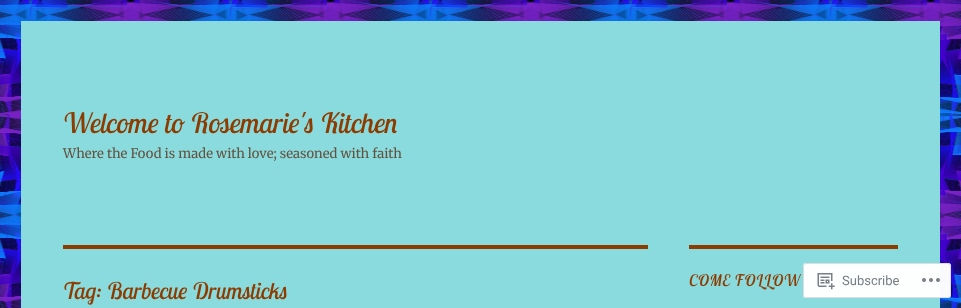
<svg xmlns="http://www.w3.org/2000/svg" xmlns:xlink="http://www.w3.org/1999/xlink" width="961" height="308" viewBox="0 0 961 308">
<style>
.cls-1{font:italic 28px Lobster Two;fill:#8e3b00}
.cls-2{font:13px Merriweather;fill:#625340}
.cls-3{font:italic 23px Lobster Two;fill:#8e3b00}
.cls-4{font:italic 16px Lobster Two;letter-spacing:0.75px;fill:#8e3b00}
.cls-5{font:13px Roboto;fill:#787e84}
</style>
<rect width="100%" height="100%" fill="#ffffff"/>
<image xlink:href="image0.png" x="0" y="0" width="961" height="308"/>
<rect fill="#8adbde" x="21" y="21" width="919" height="287"/>
<rect fill="#8e3b00" x="63" y="245" width="585" height="4"/>
<rect fill="#8e3b00" x="689" y="245" width="209" height="4"/>
<rect fill="#ffffff" fill-opacity="0.98" x="803" y="263" width="148" height="35" rx="3"/>
<rect fill="none" stroke="#dcdcde" stroke-opacity="0.98" x="803.5" y="263.5" width="147" height="34" rx="2.5"/>
<image xlink:href="image1.png" x="817" y="273" width="18" height="17"/>
<image xlink:href="image2.png" x="922" y="278" width="18" height="4"/>
<text class="cls-1" x="63" y="133">Welcome to Rosemarie's Kitchen</text>
<text class="cls-2" x="63" y="158">Where the Food is made with love; seasoned with faith</text>
<text class="cls-3" x="63" y="299">Tag: Barbecue Drumsticks</text>
<text class="cls-4" x="689" y="286">COME FOLLOW</text>
<text class="cls-5" x="842" y="285">Subscribe</text>
</svg>
